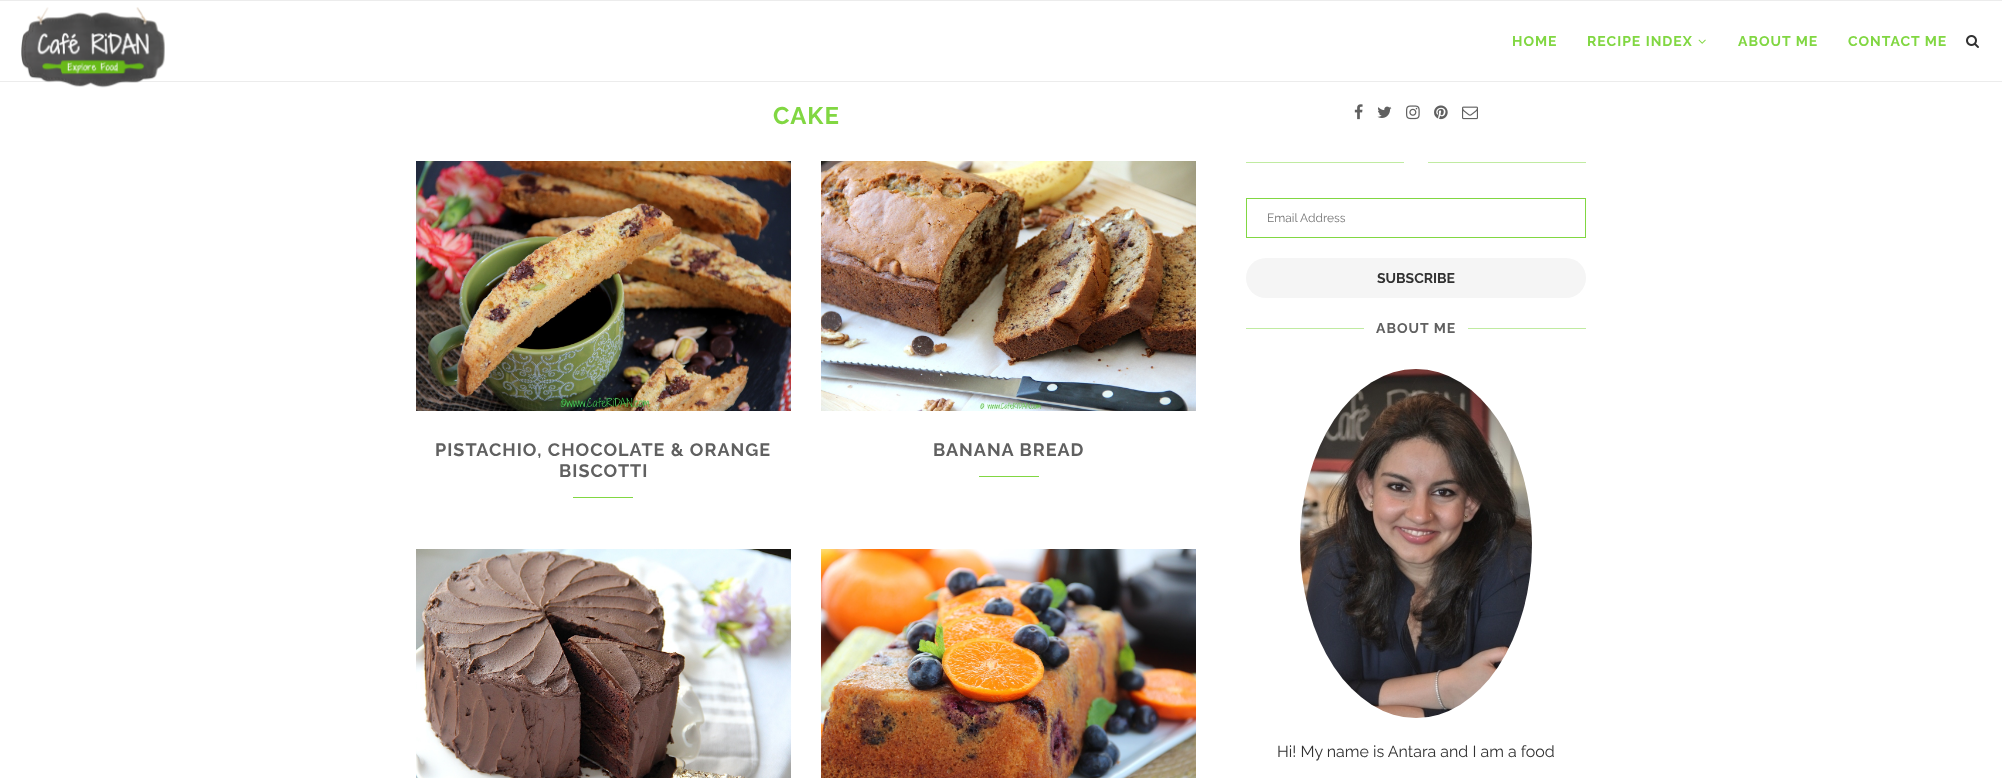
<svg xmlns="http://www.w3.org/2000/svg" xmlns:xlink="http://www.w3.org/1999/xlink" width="2002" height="778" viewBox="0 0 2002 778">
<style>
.cls-1{font:bold 14px Raleway;letter-spacing:1px;fill:#81d742}
.cls-2{font:bold 24px Raleway;letter-spacing:1px;fill:#81d742}
.cls-3{font:bold 18px Raleway;letter-spacing:1px;fill:#606060}
.cls-4{font:12px Raleway;fill:#757575}
.cls-5{font:bold 14px Raleway;fill:#313131}
.cls-6{font:bold 14px Raleway;letter-spacing:1px;fill:#606060}
.cls-7{font:16px Raleway;fill:#313131}
</style>
<rect width="100%" height="100%" fill="#ffffff"/>
<rect fill="#ececec" x="0" y="0" width="2002" height="1"/>
<rect fill="#ececec" x="0" y="81" width="2002" height="1"/>
<image xlink:href="image0.png" x="21" y="7" width="144" height="81"/>
<image xlink:href="image1.png" x="1698" y="39" width="8" height="5"/>
<image xlink:href="image2.png" x="1966" y="35" width="13" height="13"/>
<image xlink:href="image3.png" x="416" y="161" width="375" height="250"/>
<rect fill="#81d742" x="573" y="497" width="60" height="1"/>
<image xlink:href="image4.png" x="821" y="161" width="375" height="250"/>
<rect fill="#81d742" x="979" y="476" width="60" height="1"/>
<image xlink:href="image5.png" x="416" y="549" width="375" height="229"/>
<image xlink:href="image6.png" x="821" y="549" width="375" height="229"/>
<image xlink:href="image7.png" x="1354" y="104" width="9" height="16"/>
<image xlink:href="image8.png" x="1377" y="106" width="15" height="12"/>
<image xlink:href="image9.png" x="1406" y="105" width="14" height="15"/>
<image xlink:href="image10.png" x="1434" y="105" width="14" height="15"/>
<image xlink:href="image11.png" x="1462" y="106" width="16" height="14"/>
<rect fill="#c0eba1" x="1246" y="162" width="158" height="1"/>
<rect fill="#c0eba1" x="1428" y="162" width="158" height="1"/>
<rect fill="none" stroke="#81d742" x="1246.5" y="198.5" width="339" height="39"/>
<rect fill="#f5f5f5" x="1246" y="258" width="340" height="40" rx="20"/>
<rect fill="#c0eba1" x="1246" y="328" width="118" height="1"/>
<rect fill="#c0eba1" x="1468" y="328" width="118" height="1"/>
<image xlink:href="image12.png" x="1300" y="369" width="232" height="349"/>
<text class="cls-1" x="1512" y="46">HOME</text>
<text class="cls-1" x="1587" y="46">RECIPE INDEX</text>
<text class="cls-1" x="1738" y="46">ABOUT ME</text>
<text class="cls-1" x="1848" y="46">CONTACT ME</text>
<text class="cls-2" x="773" y="124">CAKE</text>
<text class="cls-3" x="435" y="456">PISTACHIO, CHOCOLATE &amp; ORANGE</text>
<text class="cls-3" x="559" y="477">BISCOTTI</text>
<text class="cls-3" x="933" y="456">BANANA BREAD</text>
<text class="cls-4" x="1267" y="222">Email Address</text>
<text class="cls-5" x="1377" y="283">SUBSCRIBE</text>
<text class="cls-6" x="1376" y="333">ABOUT ME</text>
<text class="cls-7" x="1277" y="757">Hi! My name is Antara and I am a food</text>
</svg>
